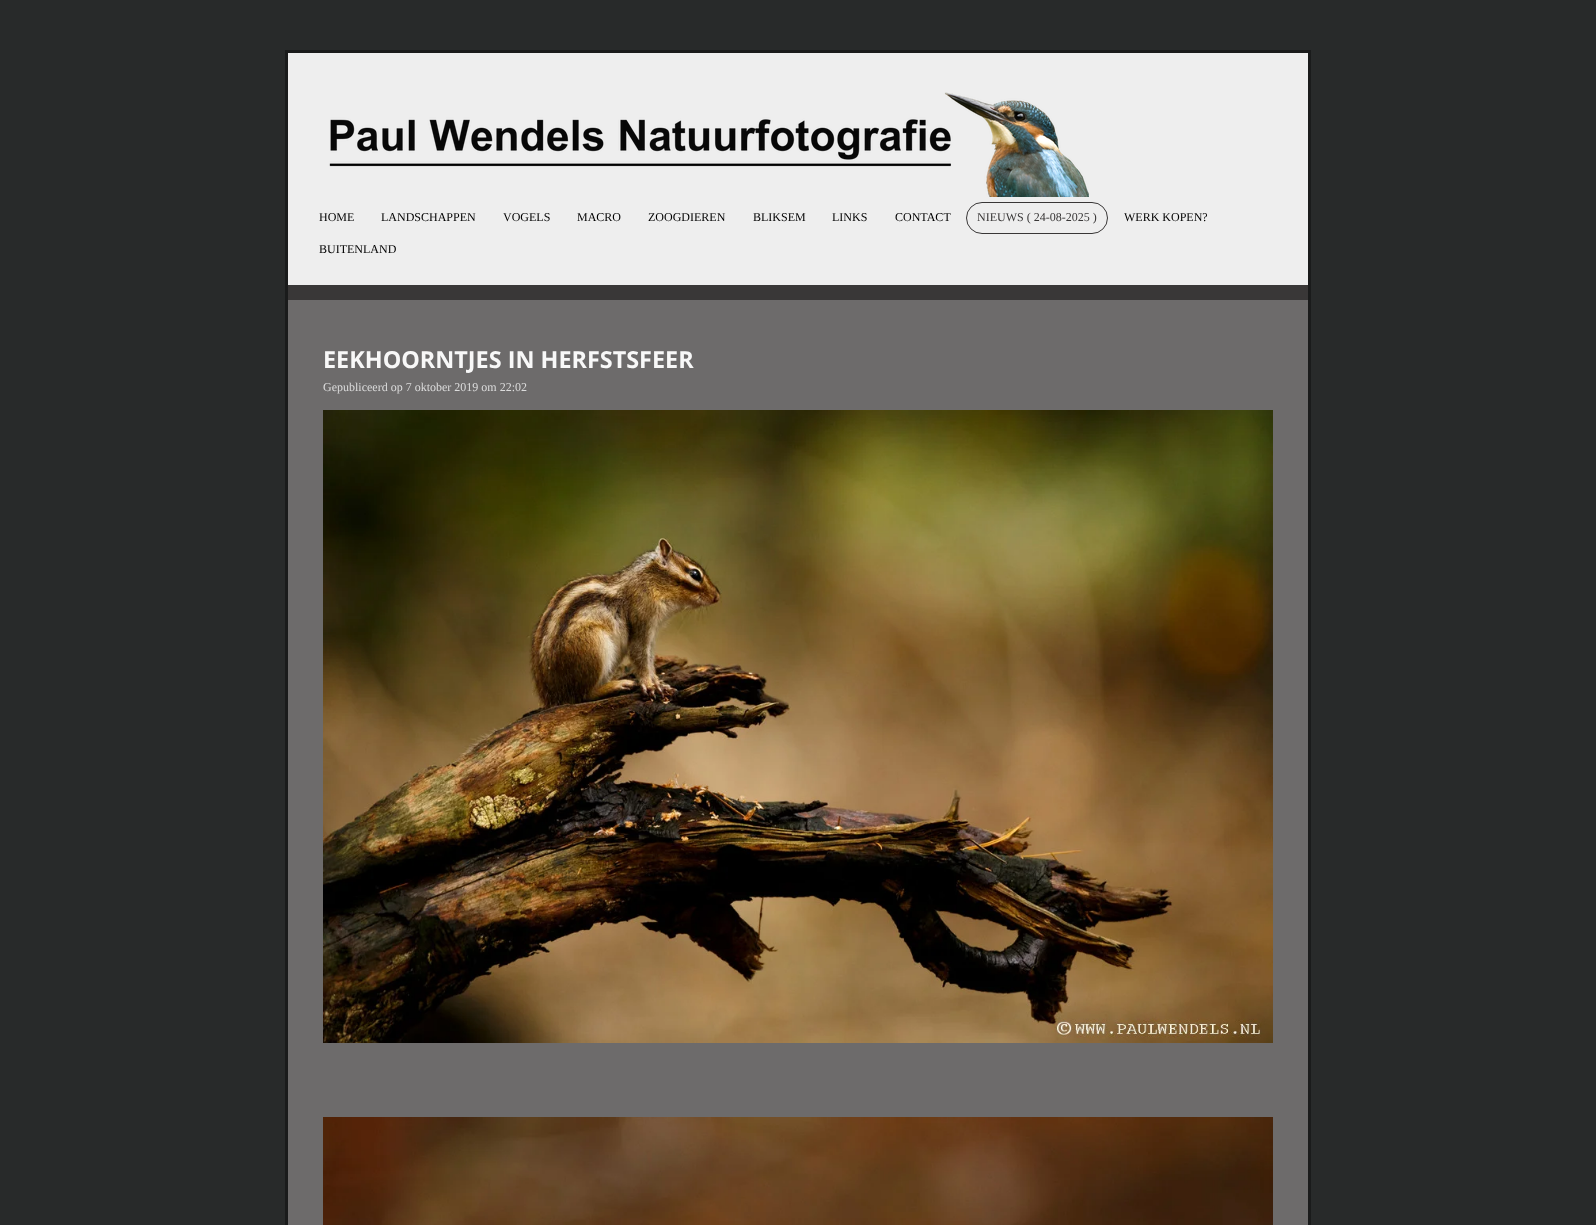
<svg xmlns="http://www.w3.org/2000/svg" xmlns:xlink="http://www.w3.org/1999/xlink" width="1596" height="1225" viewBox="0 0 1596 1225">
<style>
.cls-1{font:12px Liberation Serif;fill:#000000}
.cls-2{font:12px Liberation Serif;fill:#393737}
.cls-3{font:bold 23.4px Open Sans;fill:#f8f8f8}
.cls-4{font:12px Liberation Serif;fill:#dcdcdc}
</style>
<rect width="100%" height="100%" fill="#282a2a"/>
<rect fill="#6d6b6b" x="288" y="300" width="1020" height="925"/>
<rect fill="none" stroke="#1a1b1b" stroke-width="3" x="286.5" y="51.5" width="1023" height="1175"/>
<rect fill="#eeeeee" x="288" y="53" width="1020" height="232"/>
<image xlink:href="image0.png" x="329" y="92" width="760" height="105"/>
<rect fill="none" stroke="#393737" x="966.5" y="202.5" width="141" height="31" rx="15.5"/>
<rect fill="#393737" x="288" y="285" width="1020" height="15"/>
<image xlink:href="image1.png" x="323" y="410" width="950" height="633"/>
<image xlink:href="image2.png" x="323" y="1117" width="950" height="108"/>
<text class="cls-1" x="319" y="221">HOME</text>
<text class="cls-1" x="381" y="221">LANDSCHAPPEN</text>
<text class="cls-1" x="503" y="221">VOGELS</text>
<text class="cls-1" x="577" y="221">MACRO</text>
<text class="cls-1" x="648" y="221">ZOOGDIEREN</text>
<text class="cls-1" x="753" y="221">BLIKSEM</text>
<text class="cls-1" x="832" y="221">LINKS</text>
<text class="cls-1" x="895" y="221">CONTACT</text>
<text class="cls-2" x="977" y="221">NIEUWS ( 24-08-2025 )</text>
<text class="cls-1" x="1124" y="221">WERK KOPEN?</text>
<text class="cls-1" x="319" y="253">BUITENLAND</text>
<text class="cls-3" x="323" y="368">EEKHOORNTJES IN HERFSTSFEER</text>
<text class="cls-4" x="323" y="391">Gepubliceerd op 7 oktober 2019 om 22:02</text>
</svg>
